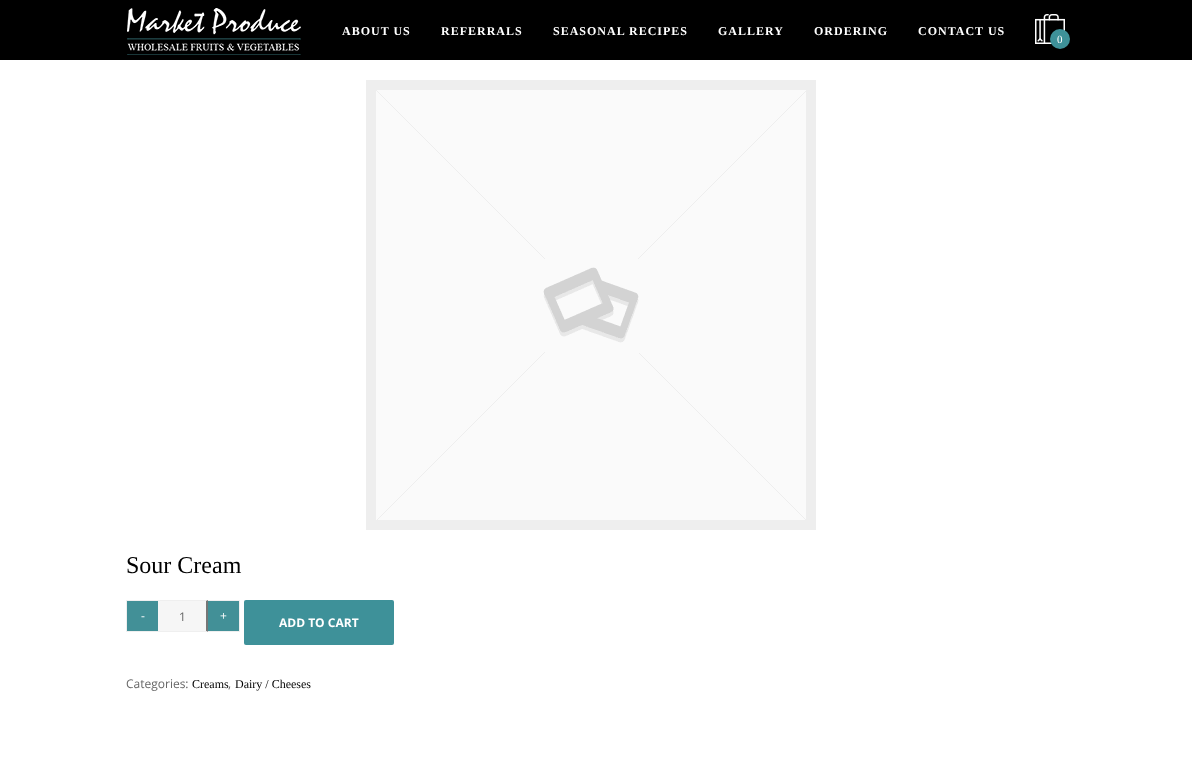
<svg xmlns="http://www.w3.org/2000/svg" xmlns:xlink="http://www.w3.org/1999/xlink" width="1192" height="780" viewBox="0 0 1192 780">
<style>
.cls-1{font:bold 12px Liberation Serif;letter-spacing:1px;fill:#ffffff}
.cls-2{font:11px Liberation Serif;fill:#ffffff}
.cls-3{font:24px Liberation Serif;fill:#000000}
.cls-4{font:12px Open Sans;fill:#ffffff}
.cls-5{font:12px Open Sans;fill:#666666}
.cls-6{font:bold 12px Open Sans;fill:#ffffff}
.cls-7{font:12px Liberation Serif;fill:#000000}
</style>
<rect width="100%" height="100%" fill="#ffffff"/>
<rect fill="#000000" x="0" y="0" width="1192" height="60"/>
<image xlink:href="image0.png" x="127" y="8" width="174" height="47"/>
<image xlink:href="image1.png" x="1035" y="14" width="30" height="30"/>
<circle fill="#3e9199" cx="1060" cy="39" r="10"/>
<image xlink:href="image2.png" x="366" y="80" width="450" height="450"/>
<rect fill="#429097" x="127" y="601" width="31" height="30"/>
<rect fill="#efefef" x="126" y="600" width="32" height="1"/>
<rect fill="#efefef" x="126" y="631" width="32" height="1"/>
<rect fill="#efefef" x="126" y="600" width="1" height="32"/>
<rect fill="#f6f6f6" x="158" y="600" width="50" height="32"/>
<path fill="#efefef" d="M158 600H208L206 601H158Z"/>
<path fill="#767676" d="M208 600V632L206 631V601Z"/>
<path fill="#efefef" d="M208 632H158V631H206Z"/>
<rect fill="#429097" x="208" y="601" width="31" height="30"/>
<rect fill="#efefef" x="208" y="600" width="32" height="1"/>
<rect fill="#efefef" x="239" y="600" width="1" height="32"/>
<rect fill="#efefef" x="208" y="631" width="32" height="1"/>
<rect fill="#3e9199" x="244" y="600" width="150" height="45" rx="2"/>
<text class="cls-1" x="342" y="35">ABOUT US</text>
<text class="cls-1" x="441" y="35">REFERRALS</text>
<text class="cls-1" x="553" y="35">SEASONAL RECIPES</text>
<text class="cls-1" x="718" y="35">GALLERY</text>
<text class="cls-1" x="814" y="35">ORDERING</text>
<text class="cls-1" x="918" y="35">CONTACT US</text>
<text class="cls-2" x="1057" y="43">0</text>
<text class="cls-3" x="126" y="573">Sour Cream</text>
<text class="cls-4" x="141" y="620">-</text>
<text class="cls-5" x="179" y="621">1</text>
<text class="cls-4" x="220" y="620">+</text>
<text class="cls-6" x="279" y="627">ADD TO CART</text>
<text class="cls-5" x="126" y="688">Categories:</text>
<text class="cls-7" x="192" y="688">Creams</text>
<text class="cls-5" x="228" y="688">,</text>
<text class="cls-7" x="235" y="688">Dairy / Cheeses</text>
</svg>
